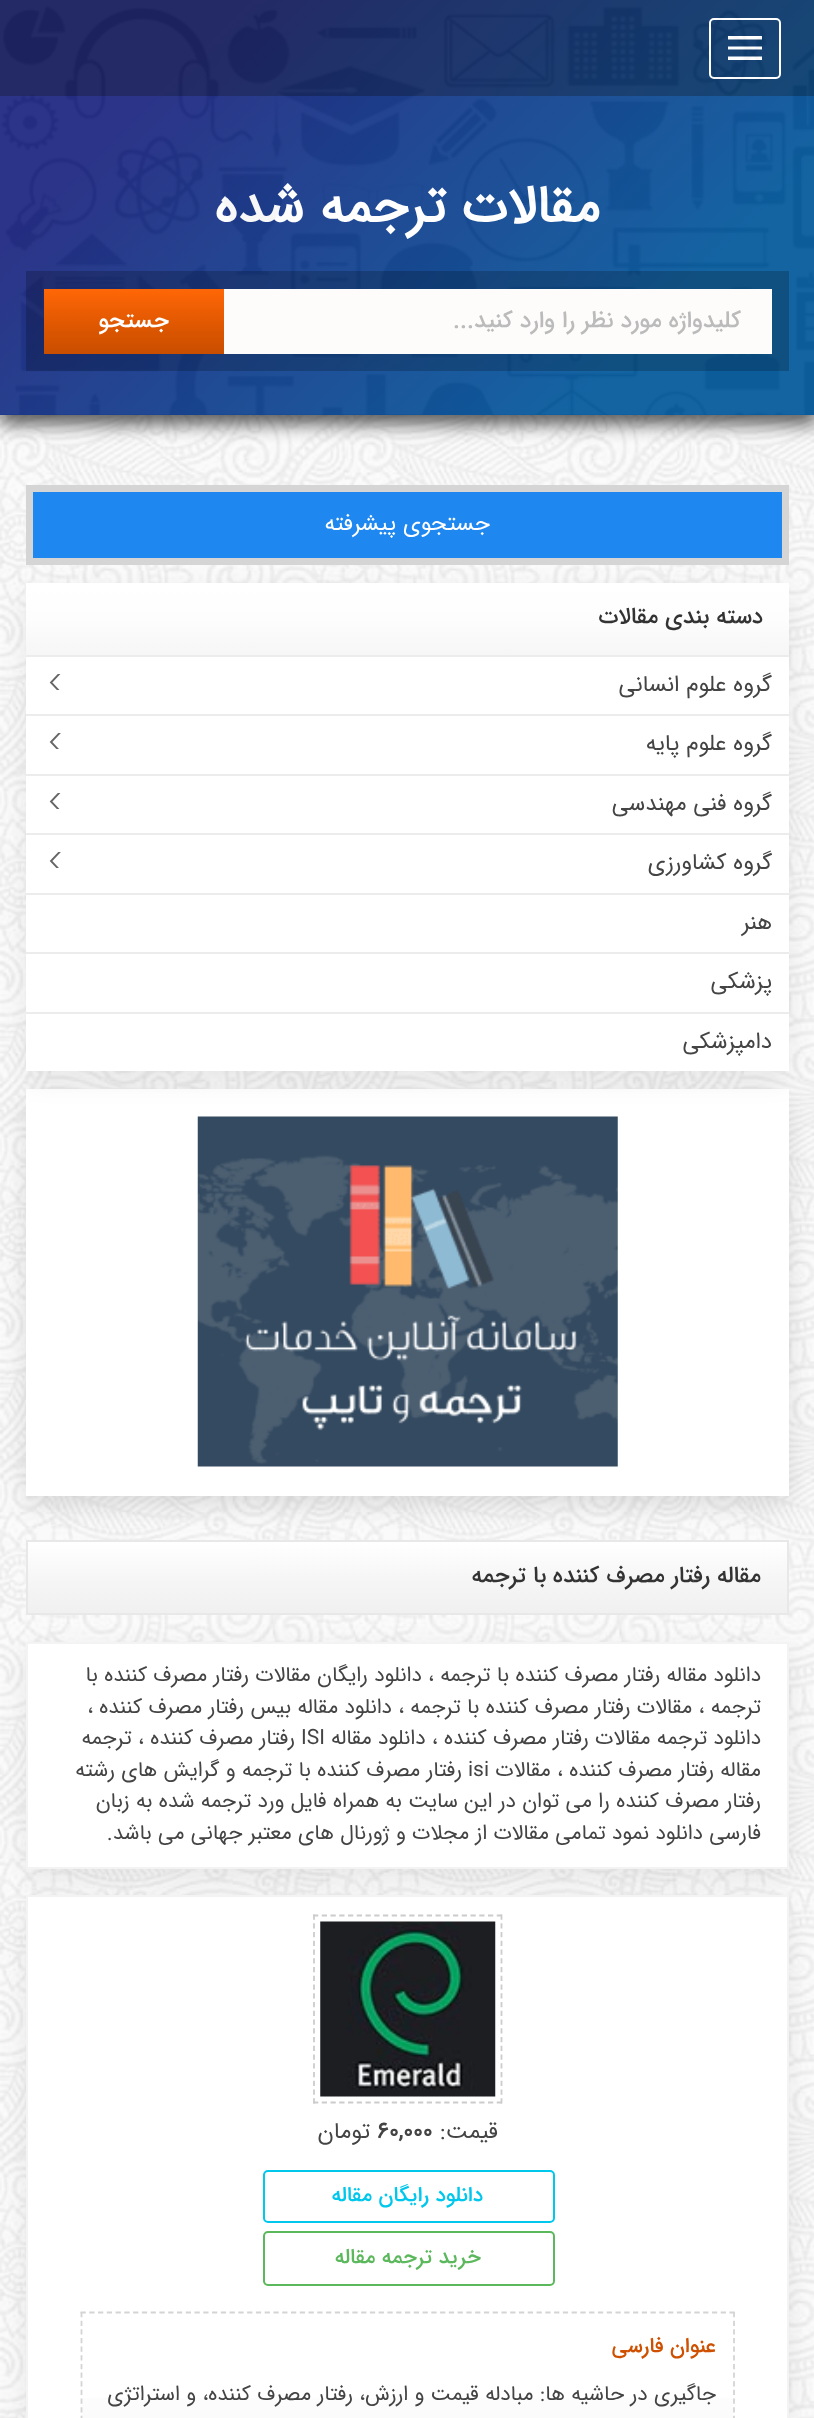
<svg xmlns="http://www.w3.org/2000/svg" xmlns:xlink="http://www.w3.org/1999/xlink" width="814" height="2418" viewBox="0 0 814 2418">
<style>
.cls-1{font:bold 52.5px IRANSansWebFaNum;direction:rtl;fill:#ffffff}
.cls-2{font:500 23.25px IRANSansWebFaNum;direction:rtl;fill:#bbbbbb}
.cls-3{font:500 23.25px IRANSansWebFaNum;direction:rtl;fill:#ffffff}
.cls-4{font:22.75px IRANSansWebFaNum;direction:rtl;fill:#ffffff}
.cls-5{font:500 22.75px IRANSansWebFaNum;direction:rtl;fill:#333333}
.cls-6{font:22.75px IRANSansWebFaNum;direction:rtl;fill:#444444}
.cls-7{font:21px IRANSansWebFaNum;direction:rtl;fill:#444444}
.cls-8{font:21px IRANSansWebFaNum;fill:#444444}
.cls-9{font:bold 22.75px IRANSansWebFaNum;fill:#444444}
.cls-10{font:500 21px IRANSansWebFaNum;direction:rtl;fill:#00c7ec}
.cls-11{font:500 21px IRANSansWebFaNum;direction:rtl;fill:#5cb85c}
.cls-12{font:500 21px IRANSansWebFaNum;direction:rtl;fill:#ce5000}
</style>
<defs>
<linearGradient id="g1" gradientUnits="userSpaceOnUse" x1="100" y1="-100" x2="715" y2="515"><stop offset="0.2" stop-color="#1a237e"/><stop offset="0.8" stop-color="#01579b"/></linearGradient>
<linearGradient id="g2" gradientUnits="userSpaceOnUse" x1="408" y1="583" x2="408" y2="655"><stop offset="0" stop-color="#ffffff"/><stop offset="0.5" stop-color="#fdfdfd"/><stop offset="1" stop-color="#f6f6f6"/></linearGradient>
<clipPath id="clip1"><rect x="44" y="674" width="24" height="16"/></clipPath>
<clipPath id="clip2"><rect x="44" y="733" width="24" height="16"/></clipPath>
<clipPath id="clip3"><rect x="44" y="793" width="24" height="16"/></clipPath>
<clipPath id="clip4"><rect x="44" y="852" width="24" height="16"/></clipPath>
<linearGradient id="g3" gradientUnits="userSpaceOnUse" x1="408" y1="1542" x2="408" y2="1614"><stop offset="0" stop-color="#ffffff"/><stop offset="0.5" stop-color="#f6f6f6"/><stop offset="1" stop-color="#f0f0f0"/></linearGradient>
<linearGradient id="g4" gradientUnits="userSpaceOnUse" x1="408" y1="2314" x2="408" y2="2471"><stop offset="0" stop-color="#ffffff"/><stop offset="0.5" stop-color="#fdfdfd"/><stop offset="1" stop-color="#f6f6f6"/></linearGradient>
<linearGradient id="g5" gradientUnits="userSpaceOnUse" x1="134" y1="289" x2="134" y2="354"><stop offset="0" stop-color="#ff6707"/><stop offset="0.6" stop-color="#dd5600"/><stop offset="1" stop-color="#c94e00"/></linearGradient>
</defs>
<rect width="100%" height="100%" fill="#ffffff"/>
<image xlink:href="image0.png" x="0" y="415" width="814" height="2003"/>
<rect fill="#000000" fill-opacity="0.65" filter="blur(9px)" x="0" y="9" width="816" height="415"/>
<rect fill="url(#g1)" x="0" y="0" width="814" height="415"/>
<rect fill="#000000" fill-opacity="0.29" x="0" y="0" width="814" height="96"/>
<rect fill="none" stroke="#ffffff" stroke-width="2" x="710" y="19" width="70" height="59" rx="4"/>
<path fill="#ffffff" d="M728 49.5V46.5H762V49.5ZM728 39.5V36H762V39.5ZM728 60V56.5H762V60Z"/>
<rect fill="#1e87f0" stroke="#d5d5d5" stroke-width="7" x="29.5" y="488.5" width="756" height="73"/>
<rect fill="#000000" fill-opacity="0.12" filter="blur(13px)" x="26" y="1097" width="763" height="408"/>
<rect fill="#ffffff" x="26" y="1089" width="763" height="407"/>
<image xlink:href="image2.png" x="197" y="1116" width="421" height="351"/>
<rect fill="#000000" fill-opacity="0.08" filter="blur(13px)" x="26" y="592" width="763" height="488"/>
<rect fill="#ffffff" x="26" y="657" width="763" height="414"/>
<rect fill="url(#g2)" x="26" y="583" width="763" height="72"/>
<rect fill="#ececec" x="26" y="655" width="763" height="2"/>
<g clip-path="url(#clip1)">
<path fill="none" stroke="#666666" stroke-width="1.9" d="M61 672L51 682.5L61 693"/>
</g>
<rect fill="#ececec" x="26" y="714" width="763" height="2"/>
<g clip-path="url(#clip2)">
<path fill="none" stroke="#666666" stroke-width="1.9" d="M61 731.5L51 742L61 752.5"/>
</g>
<rect fill="#ececec" x="26" y="774" width="763" height="2"/>
<g clip-path="url(#clip3)">
<path fill="none" stroke="#666666" stroke-width="1.9" d="M61 791L51 801.5L61 812"/>
</g>
<rect fill="#ececec" x="26" y="833" width="763" height="2"/>
<g clip-path="url(#clip4)">
<path fill="none" stroke="#666666" stroke-width="1.9" d="M61 850.5L51 861L61 871.5"/>
</g>
<rect fill="#ececec" x="26" y="893" width="763" height="2"/>
<rect fill="#ececec" x="26" y="952" width="763" height="2"/>
<rect fill="#ececec" x="26" y="1012" width="763" height="2"/>
<rect fill="url(#g3)" x="28" y="1542" width="759" height="71"/>
<rect fill="none" stroke="#e8e8e8" stroke-width="2" x="27" y="1541" width="761" height="73"/>
<rect fill="#000000" fill-opacity="0.08" filter="blur(13px)" x="26" y="1650" width="763" height="228"/>
<rect fill="#ffffff" stroke="#f3f3f3" stroke-width="2" x="27" y="1643" width="761" height="225"/>
<rect fill="#000000" fill-opacity="0.08" filter="blur(13px)" x="26" y="1904" width="763" height="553"/>
<rect fill="#ffffff" stroke="#f3f3f3" stroke-width="2" x="27" y="1896" width="761" height="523"/>
<path fill="none" stroke="#cccccc" stroke-width="1.8" stroke-dasharray="5.25 3.5" d="M313 1915.5H502"/>
<path fill="none" stroke="#cccccc" stroke-width="1.8" stroke-dasharray="5.25 3.5" d="M501.5 1914.5V2103.5"/>
<path fill="none" stroke="#cccccc" stroke-width="1.8" stroke-dasharray="5.25 3.5" d="M313 2102.5H502"/>
<path fill="none" stroke="#cccccc" stroke-width="1.8" stroke-dasharray="5.25 3.5" d="M314 1914.5V2103.5"/>
<image xlink:href="image3.png" x="320" y="1921" width="176" height="176"/>
<rect fill="none" stroke="#00c7ec" stroke-width="2" x="264" y="2171" width="290" height="51" rx="4"/>
<rect fill="none" stroke="#5cb85c" stroke-width="2" x="264" y="2232" width="290" height="53" rx="4"/>
<rect fill="url(#g4)" x="82" y="2398" width="651" height="20"/>
<path fill="none" stroke="#d5d4d4" stroke-width="1.8" stroke-dasharray="5.25 3.52" d="M80.5 2312.5H735"/>
<path fill="none" stroke="#d5d4d4" stroke-width="1.8" stroke-dasharray="5.25 3.4" d="M734 2312V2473"/>
<path fill="none" stroke="#d5d4d4" stroke-width="1.8" stroke-dasharray="5.25 3.4" d="M81.5 2312V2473"/>
<text class="cls-1" x="600" y="222">مقالات ترجمه شده</text>
<image xlink:href="image1.png" x="0" y="0" width="814" height="415"/>
<rect fill="#000000" fill-opacity="0.2" x="26" y="271" width="763" height="100"/>
<rect fill="#fdfcfb" x="224" y="289" width="548" height="65"/>
<text class="cls-2" x="741" y="327">کلیدواژه مورد نظر را وارد کنید...</text>
<rect fill="url(#g5)" x="44" y="289" width="180" height="65"/>
<text class="cls-3" x="169" y="327">جستجو</text>
<text class="cls-4" x="490" y="530">جستجوی پیشرفته</text>
<text class="cls-5" x="763" y="623">دسته بندی مقالات</text>
<text class="cls-6" x="772" y="691">گروه علوم انسانی</text>
<text class="cls-6" x="772" y="750">گروه علوم پایه</text>
<text class="cls-6" x="772" y="810">گروه فنی مهندسی</text>
<text class="cls-6" x="772" y="869">گروه کشاورزی</text>
<text class="cls-6" x="772" y="929">هنر</text>
<text class="cls-6" x="772" y="988">پزشکی</text>
<text class="cls-6" x="772" y="1048">دامپزشکی</text>
<text class="cls-5" x="761" y="1582">مقاله رفتار مصرف کننده با ترجمه</text>
<text class="cls-7"><tspan x="761" y="1681">دانلود مقاله رفتار مصرف کننده با ترجمه ، دانلود رایگان مقالات رفتار مصرف کننده با</tspan><tspan x="761" y="1713">ترجمه ، مقالات رفتار مصرف کننده با ترجمه ، دانلود مقاله بیس رفتار مصرف کننده ،</tspan><tspan x="761" y="1744">دانلود ترجمه مقالات رفتار مصرف کننده ، دانلود مقاله</tspan></text>
<text class="cls-8" x="301" y="1744">ISI</text>
<text class="cls-7" x="295" y="1744">رفتار مصرف کننده ، ترجمه</text>
<text class="cls-7" x="761" y="1776">مقاله رفتار مصرف کننده ، مقالات</text>
<text class="cls-8" x="468" y="1776">isi</text>
<text class="cls-7" x="462" y="1776">رفتار مصرف کننده با ترجمه و گرایش های رشته</text>
<text class="cls-7"><tspan x="761" y="1807">رفتار مصرف کننده را می توان در این سایت به همراه فایل ورد ترجمه شده به زبان</tspan><tspan x="761" y="1839">فارسی دانلود نمود تمامی مقالات از مجلات و ژورنال های معتبر جهانی می باشد.</tspan></text>
<text class="cls-6" x="498" y="2138">قیمت:</text>
<text class="cls-9" x="377" y="2138">60,000</text>
<text class="cls-6" x="370" y="2138">تومان</text>
<text class="cls-10" x="483" y="2201">دانلود رایگان مقاله</text>
<text class="cls-11" x="481" y="2263">خرید ترجمه مقاله</text>
<text class="cls-12" x="716" y="2352">عنوان فارسی</text>
<text class="cls-7" x="716" y="2400">جاگیری در حاشیه ها: مبادله قیمت و ارزش، رفتار مصرف کننده، و استراتژی</text>
</svg>
